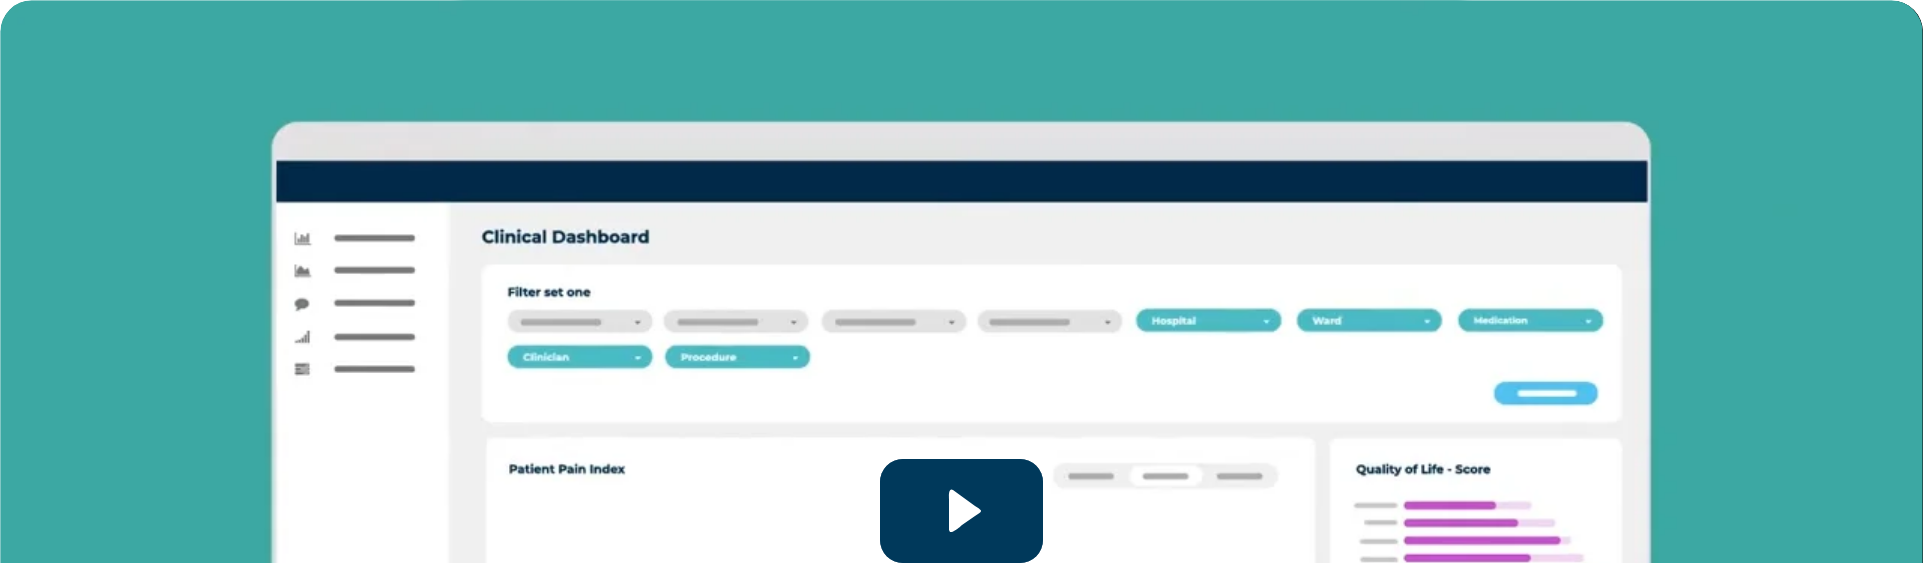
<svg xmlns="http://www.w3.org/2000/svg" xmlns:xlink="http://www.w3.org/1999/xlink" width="1923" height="563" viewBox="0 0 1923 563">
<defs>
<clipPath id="clip1"><rect x="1" y="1" width="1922" height="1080" rx="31"/></clipPath>
<clipPath id="clip2"><rect x="1" y="1" width="1922" height="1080" rx="31"/></clipPath>
</defs>
<rect width="100%" height="100%" fill="#ffffff"/>
<image xlink:href="image2.png" x="451" y="0" width="1021" height="1"/>
<g clip-path="url(#clip1)">
<rect fill="#000000" filter="blur(5px)" x="0" y="0" width="1923" height="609" rx="31"/>
</g>
<image xlink:href="image0.png" x="0" y="0" width="1923" height="563"/>
<g clip-path="url(#clip2)">
<rect fill="#000000" x="0" y="0" width="1923" height="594" rx="31"/>
</g>
<image xlink:href="image1.png" x="0" y="0" width="1923" height="563"/>
<rect fill="#00395b" x="880" y="459" width="163" height="104" rx="23"/>
<rect fill="#00395b" fill-opacity="0.7" x="880" y="459" width="163" height="104" rx="23"/>
<path fill="#ffffff" fill-rule="evenodd" d="M953 490C948 487 949 498 949 499V530L950 532C953 533 960 527 962 525L975 516C983 511 983 511 975 506Z"/>
</svg>
